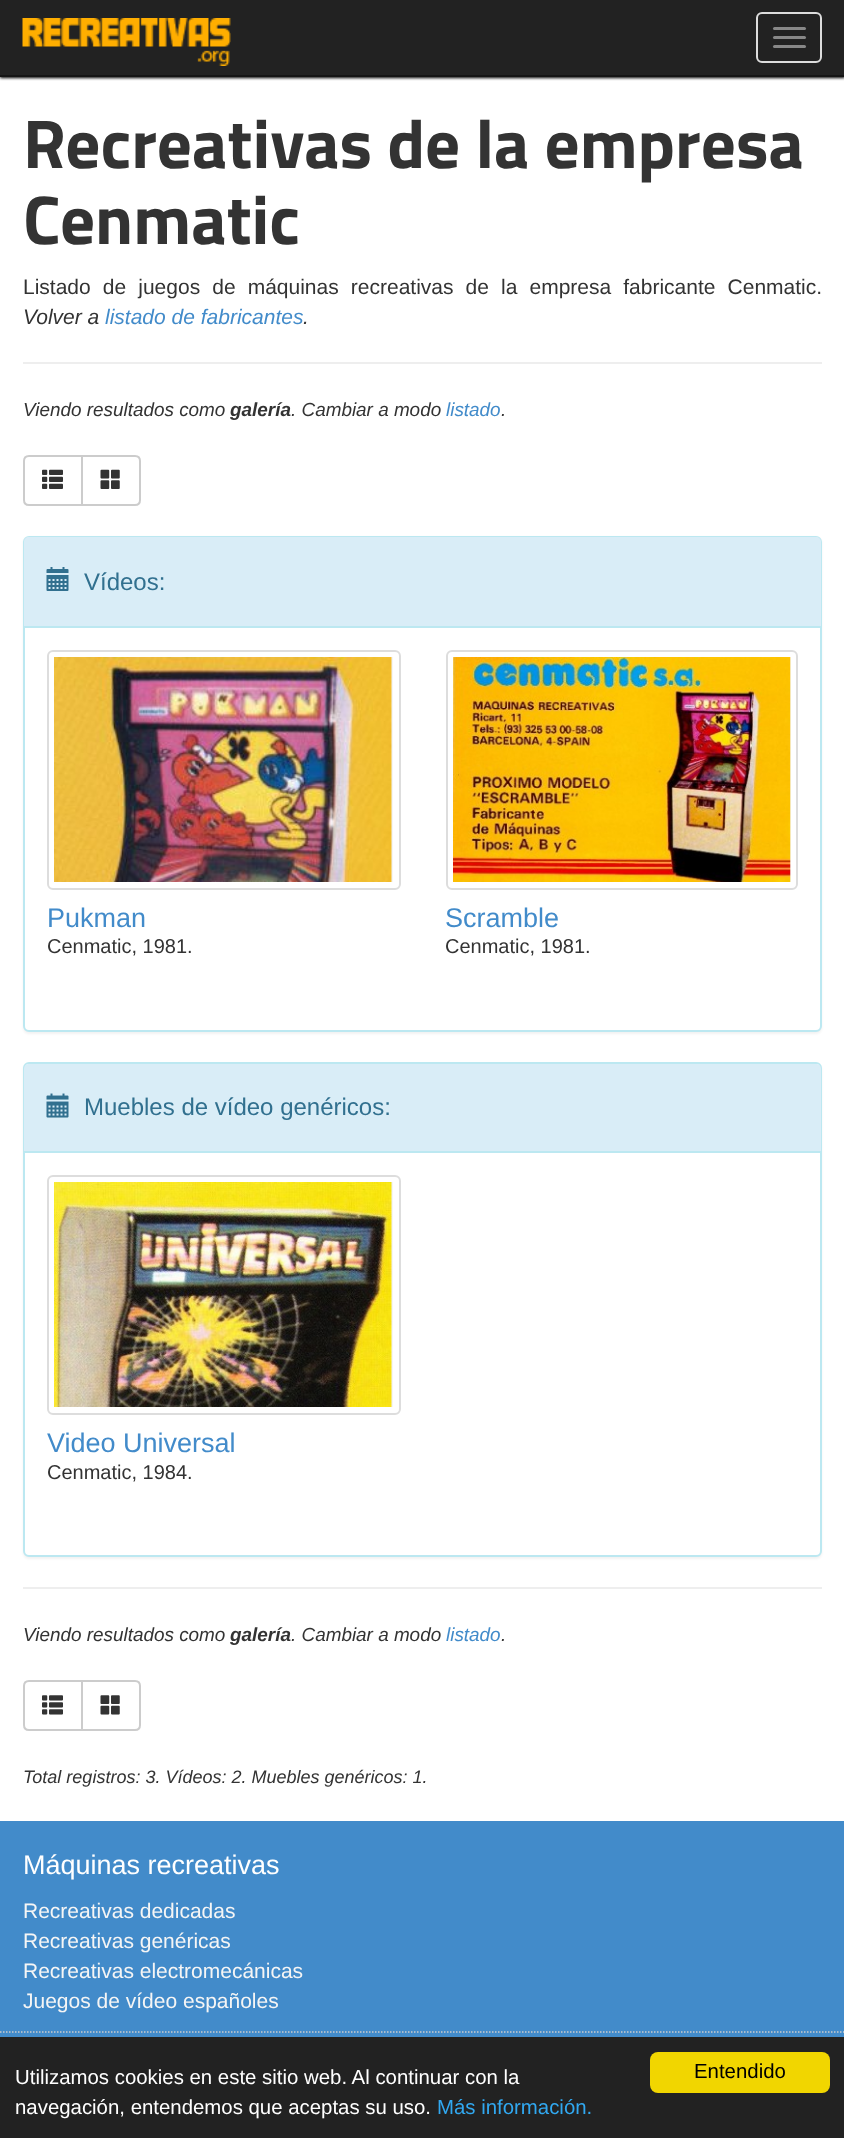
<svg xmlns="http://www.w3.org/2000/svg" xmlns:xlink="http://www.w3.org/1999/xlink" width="844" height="2138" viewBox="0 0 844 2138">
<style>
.cls-1{font:bold 69px Titillium Web;fill:#333333}
.cls-2{font:21px Liberation Sans;fill:#333333}
.cls-3{font:italic 21px Liberation Sans;fill:#333333}
.cls-4{font:italic 21px Liberation Sans;fill:#428bca}
.cls-5{font:italic 18.9px Liberation Sans;fill:#333333}
.cls-6{font:italic bold 18.9px Liberation Sans;fill:#333333}
.cls-7{font:italic 18.9px Liberation Sans;fill:#428bca}
.cls-8{font:24px Liberation Sans;fill:#31708f}
.cls-9{font:27px Liberation Sans;fill:#428bca}
.cls-10{font:20px Liberation Sans;fill:#333333}
.cls-11{font:italic 18px Liberation Sans;fill:#333333}
.cls-12{font:27px Liberation Sans;fill:#ffffff}
.cls-13{font:21px Liberation Sans;fill:#f5f5f5}
.cls-14{font:20.4px Liberation Sans;fill:#ffffff}
.cls-15{font:20.4px Liberation Sans;fill:#31a8f0}
.cls-16{font:20.4px Liberation Sans;fill:#000000}
</style>
<rect width="100%" height="100%" fill="#ffffff"/>
<rect fill="#000000" filter="blur(1.5px)" x="0" y="2" width="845" height="76"/>
<rect fill="#222222" x="0" y="0" width="844" height="75"/>
<rect fill="#151515" x="0" y="75" width="844" height="2"/>
<image xlink:href="image0.png" x="22" y="18" width="209" height="48"/>
<rect fill="none" stroke="#dddddd" stroke-width="2" x="757" y="13" width="64" height="49" rx="5"/>
<rect fill="#888888" x="773" y="27" width="33" height="3" rx="1.5"/>
<rect fill="#888888" x="773" y="36" width="33" height="3" rx="1.5"/>
<rect fill="#888888" x="773" y="45" width="33" height="3" rx="1.5"/>
<rect fill="#eeeeee" x="23" y="362" width="799" height="2"/>
<path fill="none" stroke="#cccccc" stroke-width="2" d="M29 456H82V505H29C26 505 24 503 24 500V461C24 458 26 456 29 456Z"/>
<image xlink:href="image1.png" x="42" y="469" width="21" height="20"/>
<path fill="#ffffff" stroke="#cccccc" stroke-width="2" d="M82 456H135C138 456 140 458 140 461V500C140 503 138 505 135 505H82Z"/>
<image xlink:href="image2.png" x="100" y="469" width="20" height="20"/>
<rect fill="#000000" fill-opacity="0.05" filter="blur(1px)" x="23" y="537" width="799" height="497" rx="6"/>
<rect fill="#ffffff" stroke="#bce8f1" stroke-width="2" x="24" y="537" width="797" height="494" rx="5"/>
<path fill="#d9edf7" d="M29 537H816C819 537 821 539 821 542V627H24V542C24 539 26 537 29 537Z"/>
<rect fill="#bce8f1" x="24" y="626" width="797" height="2"/>
<image xlink:href="image3.png" x="46" y="567" width="23" height="24"/>
<rect fill="none" stroke="#dddddd" stroke-width="2" x="48" y="651" width="352" height="238" rx="5"/>
<rect fill="#f5f5f5" x="391" y="657" width="2" height="225"/>
<image xlink:href="image4.png" x="54" y="657" width="338" height="225"/>
<rect fill="none" stroke="#dddddd" stroke-width="2" x="447" y="651" width="350" height="238" rx="5"/>
<rect fill="#f5f5f5" x="790" y="657" width="1" height="225"/>
<image xlink:href="image5.png" x="453" y="657" width="338" height="225"/>
<rect fill="#000000" fill-opacity="0.05" filter="blur(1px)" x="23" y="1064" width="799" height="495" rx="6"/>
<rect fill="#ffffff" stroke="#bce8f1" stroke-width="2" x="24" y="1063" width="797" height="493" rx="5"/>
<path fill="#d9edf7" d="M29 1064H816C819 1064 821 1066 821 1069V1152H24V1069C24 1066 26 1064 29 1064Z"/>
<rect fill="#bce8f1" x="24" y="1151" width="797" height="2"/>
<image xlink:href="image6.png" x="46" y="1093" width="23" height="25"/>
<rect fill="none" stroke="#dddddd" stroke-width="2" x="48" y="1176" width="352" height="238" rx="5"/>
<rect fill="#f5f5f5" x="391" y="1182" width="2" height="225"/>
<image xlink:href="image7.png" x="54" y="1182" width="338" height="225"/>
<rect fill="#eeeeee" x="23" y="1587" width="799" height="2"/>
<path fill="none" stroke="#cccccc" stroke-width="2" d="M29 1681H82V1730H29C26 1730 24 1728 24 1725V1686C24 1683 26 1681 29 1681Z"/>
<image xlink:href="image8.png" x="42" y="1695" width="21" height="20"/>
<path fill="#ffffff" stroke="#cccccc" stroke-width="2" d="M82 1681H135C138 1681 140 1683 140 1686V1725C140 1728 138 1730 135 1730H82Z"/>
<image xlink:href="image9.png" x="100" y="1695" width="20" height="20"/>
<rect fill="#428bca" x="0" y="1821" width="844" height="216"/>
<path fill="none" stroke="#cccccc" stroke-width="1.5" stroke-dasharray="1.5 1.5" d="M0 2032H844.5"/>
<rect fill="#222222" x="0" y="2037" width="844" height="101"/>
<rect fill="#f1d600" x="650" y="2052" width="180" height="41" rx="8"/>
<text class="cls-1"><tspan x="23" y="168">Recreativas de la empresa</tspan><tspan x="23" y="244">Cenmatic</tspan></text>
<text class="cls-2" x="23" y="294" word-spacing="6.25">Listado de juegos de máquinas recreativas de la empresa fabricante Cenmatic.</text>
<text class="cls-3" x="23" y="324">Volver a</text>
<text class="cls-4" x="105" y="324">listado de fabricantes</text>
<text class="cls-3" x="303" y="324">.</text>
<text class="cls-5" x="23" y="416">Viendo resultados como</text>
<text class="cls-6" x="230" y="416">galería</text>
<text class="cls-5" x="291" y="416">. Cambiar a modo</text>
<text class="cls-7" x="446" y="416">listado</text>
<text class="cls-5" x="501" y="416">.</text>
<text class="cls-8" x="84" y="590">Vídeos:</text>
<text class="cls-9" x="47" y="927">Pukman</text>
<text class="cls-10" x="47" y="953">Cenmatic, 1981.</text>
<text class="cls-9" x="445" y="927">Scramble</text>
<text class="cls-10" x="445" y="953">Cenmatic, 1981.</text>
<text class="cls-8" x="84" y="1115">Muebles de vídeo genéricos:</text>
<text class="cls-9" x="47" y="1452">Video Universal</text>
<text class="cls-10" x="47" y="1479">Cenmatic, 1984.</text>
<text class="cls-5" x="23" y="1641">Viendo resultados como</text>
<text class="cls-6" x="230" y="1641">galería</text>
<text class="cls-5" x="291" y="1641">. Cambiar a modo</text>
<text class="cls-7" x="446" y="1641">listado</text>
<text class="cls-5" x="501" y="1641">.</text>
<text class="cls-11" x="23" y="1783">Total registros: 3. Vídeos: 2. Muebles genéricos: 1.</text>
<text class="cls-12" x="23" y="1874">Máquinas recreativas</text>
<text class="cls-13"><tspan x="23" y="1918">Recreativas dedicadas</tspan><tspan x="23" y="1948">Recreativas genéricas</tspan><tspan x="23" y="1978">Recreativas electromecánicas</tspan><tspan x="23" y="2008">Juegos de vídeo españoles</tspan></text>
<text class="cls-14"><tspan x="15" y="2084">Utilizamos cookies en este sitio web. Al continuar con la</tspan><tspan x="15" y="2114">navegación, entendemos que aceptas su uso.</tspan></text>
<text class="cls-15" x="437" y="2114">Más información.</text>
<text class="cls-16" x="694" y="2078">Entendido</text>
</svg>
